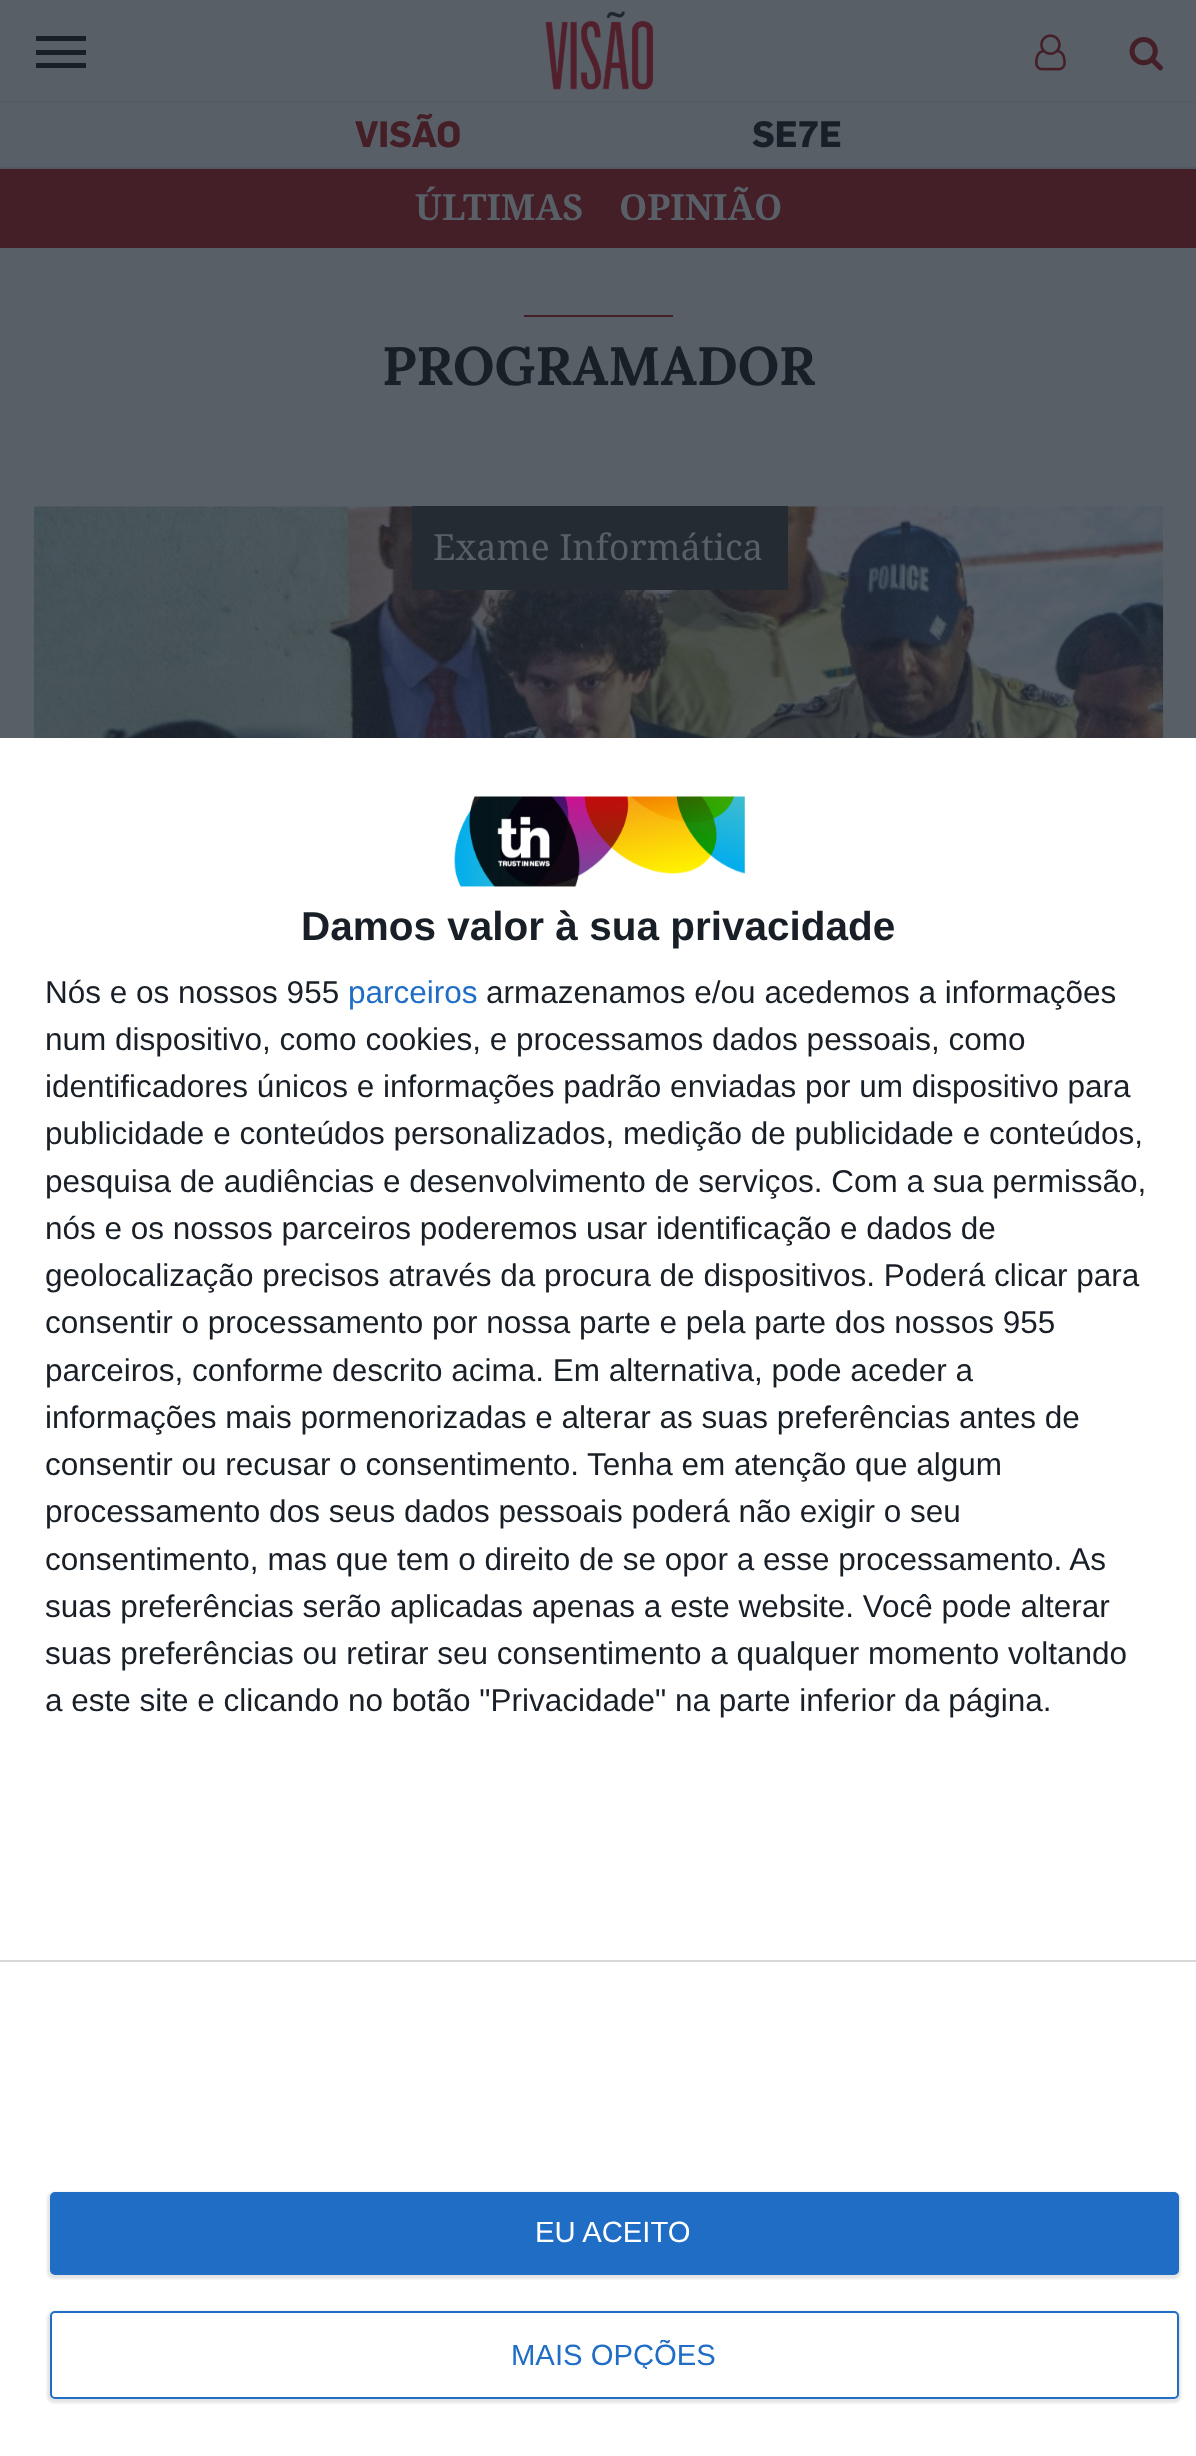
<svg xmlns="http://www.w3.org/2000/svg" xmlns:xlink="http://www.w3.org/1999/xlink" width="1196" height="2456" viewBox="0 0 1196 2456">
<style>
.cls-1{font:bold 36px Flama;fill:#451f27}
.cls-2{font:bold 36px Flama;fill:#191f27}
.cls-3{font:bold 36px Noto Serif;fill:#595f67}
.cls-4{font:bold 54px Lora;fill:#191f27}
.cls-5{font:36px Noto Serif;fill:#595f67}
.cls-6{font:bold 40.5px Liberation Sans;fill:#191f27}
.cls-7{font:31.5px Liberation Sans;fill:#191f27}
.cls-8{font:31.5px Liberation Sans;fill:#206dc5}
.cls-9{font:29.25px Liberation Sans;fill:#ffffff}
.cls-10{font:29.25px Liberation Sans;fill:#206dc5}
</style>
<defs>
<clipPath id="clip1"><rect x="511" y="2340" width="205" height="29"/></clipPath>
</defs>
<rect width="100%" height="100%" fill="#595f67"/>
<rect fill="#191f27" x="36" y="36" width="50" height="5"/>
<rect fill="#191f27" x="36" y="50" width="50" height="5"/>
<rect fill="#191f27" x="36" y="63" width="50" height="5"/>
<image xlink:href="image0.png" x="545" y="11" width="109" height="79"/>
<image xlink:href="image1.png" x="1035" y="34" width="31" height="37"/>
<image xlink:href="image2.png" x="1129" y="37" width="34" height="34"/>
<rect fill="#565c64" x="0" y="101" width="1196" height="2"/>
<rect fill="#525861" x="0" y="167" width="1196" height="2"/>
<rect fill="#451f27" x="0" y="169" width="1196" height="79"/>
<rect fill="#451f27" x="524" y="315" width="149" height="2"/>
<image xlink:href="image3.png" x="33" y="506" width="1131" height="232"/>
<rect fill="#252b33" x="412" y="506" width="376" height="84"/>
<rect fill="#ffffff" x="0" y="738" width="1196" height="1718"/>
<image xlink:href="image4.png" x="454" y="796" width="291" height="91"/>
<rect fill="#d8d8d8" x="0" y="1960" width="1196" height="2"/>
<rect fill="#000000" fill-opacity="0.1" filter="blur(1px)" x="47" y="2192" width="1134" height="87" rx="7"/>
<rect fill="#206dc5" x="50" y="2192" width="1129" height="83" rx="5"/>
<rect fill="#000000" fill-opacity="0.1" filter="blur(1px)" x="47" y="2311" width="1134" height="92" rx="7"/>
<rect fill="#ffffff" stroke="#206dc5" stroke-width="2" x="51" y="2312" width="1127" height="86" rx="4"/>
<text class="cls-1" x="355" y="147">VISÃO</text>
<text class="cls-2" x="752" y="147">SE7E</text>
<text class="cls-3" x="415" y="220">ÚLTIMAS</text>
<text class="cls-3" x="619" y="220">OPINIÃO</text>
<text class="cls-4" x="382" y="385">PROGRAMADOR</text>
<text class="cls-5" x="433" y="560">Exame Informática</text>
<text class="cls-6" x="301" y="940">Damos valor à sua privacidade</text>
<text class="cls-7" x="45" y="1003">Nós e os nossos 955</text>
<text class="cls-8" x="348" y="1003">parceiros</text>
<text class="cls-7" x="486" y="1003">armazenamos e/ou acedemos a informações</text>
<text class="cls-7"><tspan x="45" y="1050">num dispositivo, como cookies, e processamos dados pessoais, como</tspan><tspan x="45" y="1097">identificadores únicos e informações padrão enviadas por um dispositivo para</tspan><tspan x="45" y="1144">publicidade e conteúdos personalizados, medição de publicidade e conteúdos,</tspan><tspan x="45" y="1192">pesquisa de audiências e desenvolvimento de serviços. Com a sua permissão,</tspan><tspan x="45" y="1239">nós e os nossos parceiros poderemos usar identificação e dados de</tspan><tspan x="45" y="1286">geolocalização precisos através da procura de dispositivos. Poderá clicar para</tspan><tspan x="45" y="1333">consentir o processamento por nossa parte e pela parte dos nossos 955</tspan><tspan x="45" y="1381">parceiros, conforme descrito acima. Em alternativa, pode aceder a</tspan><tspan x="45" y="1428">informações mais pormenorizadas e alterar as suas preferências antes de</tspan><tspan x="45" y="1475">consentir ou recusar o consentimento.</tspan></text>
<text class="cls-7" x="587" y="1475">Tenha em atenção que algum</text>
<text class="cls-7"><tspan x="45" y="1522">processamento dos seus dados pessoais poderá não exigir o seu</tspan><tspan x="45" y="1570">consentimento, mas que tem o direito de se opor a esse processamento. As</tspan><tspan x="45" y="1617">suas preferências serão aplicadas apenas a este website. Você pode alterar</tspan><tspan x="45" y="1664">suas preferências ou retirar seu consentimento a qualquer momento voltando</tspan><tspan x="45" y="1711">a este site e clicando no botão "Privacidade" na parte inferior da página.</tspan></text>
<text class="cls-9" x="535" y="2242">EU ACEITO</text>
<g clip-path="url(#clip1)">
<text class="cls-10" x="511" y="2365">MAIS OPÇÕES</text>
</g>
</svg>
